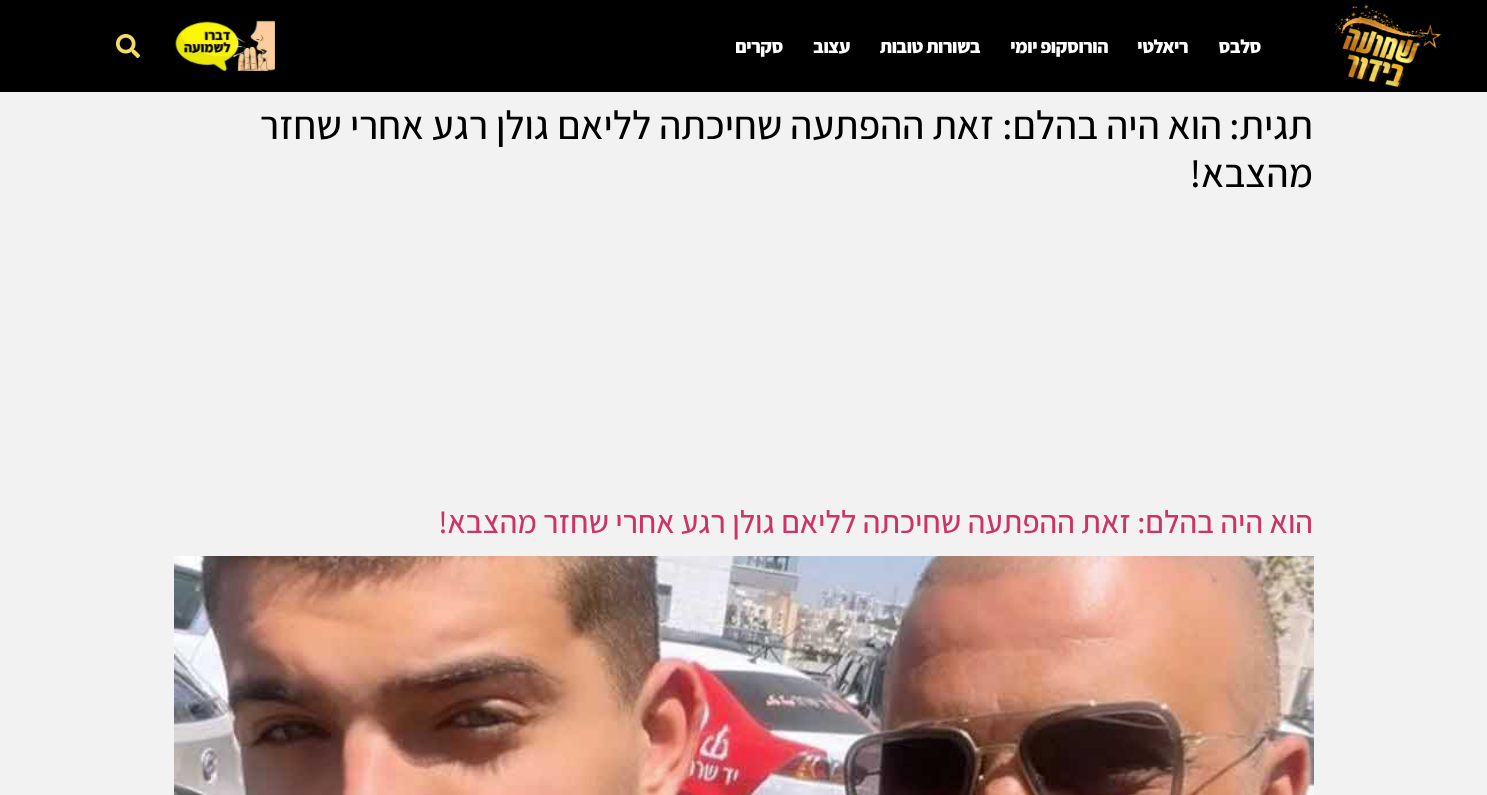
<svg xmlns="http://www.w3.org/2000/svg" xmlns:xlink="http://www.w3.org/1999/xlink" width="1487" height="795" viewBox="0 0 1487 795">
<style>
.cls-1{font:800 19px Assistant;letter-spacing:-0.4px;direction:rtl;fill:#ffffff}
.cls-2{font:500 40px Assistant;direction:rtl;fill:#000000}
.cls-3{font:500 32px Assistant;direction:rtl;fill:#cc3366}
</style>
<rect width="100%" height="100%" fill="#f2f2f2"/>
<rect fill="#000000" x="0" y="0" width="1487" height="92"/>
<image xlink:href="image0.png" x="1335" y="4" width="107" height="84"/>
<image xlink:href="image1.png" x="175" y="20" width="100" height="51"/>
<image xlink:href="image2.png" x="116" y="34" width="24" height="24"/>
<image xlink:href="image3.png" x="174" y="556" width="1140" height="239"/>
<text class="cls-1" x="1261" y="53">סלבס</text>
<text class="cls-1" x="1188" y="53">ריאלטי</text>
<text class="cls-1" x="1108" y="53">הורוסקופ יומי</text>
<text class="cls-1" x="980" y="53">בשורות טובות</text>
<text class="cls-1" x="850" y="53">עצוב</text>
<text class="cls-1" x="783" y="53">סקרים</text>
<text class="cls-2" x="1313" y="139">תגית:</text>
<text class="cls-2" x="1222" y="139">הוא היה בהלם: זאת ההפתעה שחיכתה לליאם גולן רגע אחרי שחזר</text>
<text class="cls-2" x="1313" y="187">מהצבא!</text>
<text class="cls-3" x="1313" y="533">הוא היה בהלם: זאת ההפתעה שחיכתה לליאם גולן רגע אחרי שחזר מהצבא!</text>
</svg>
